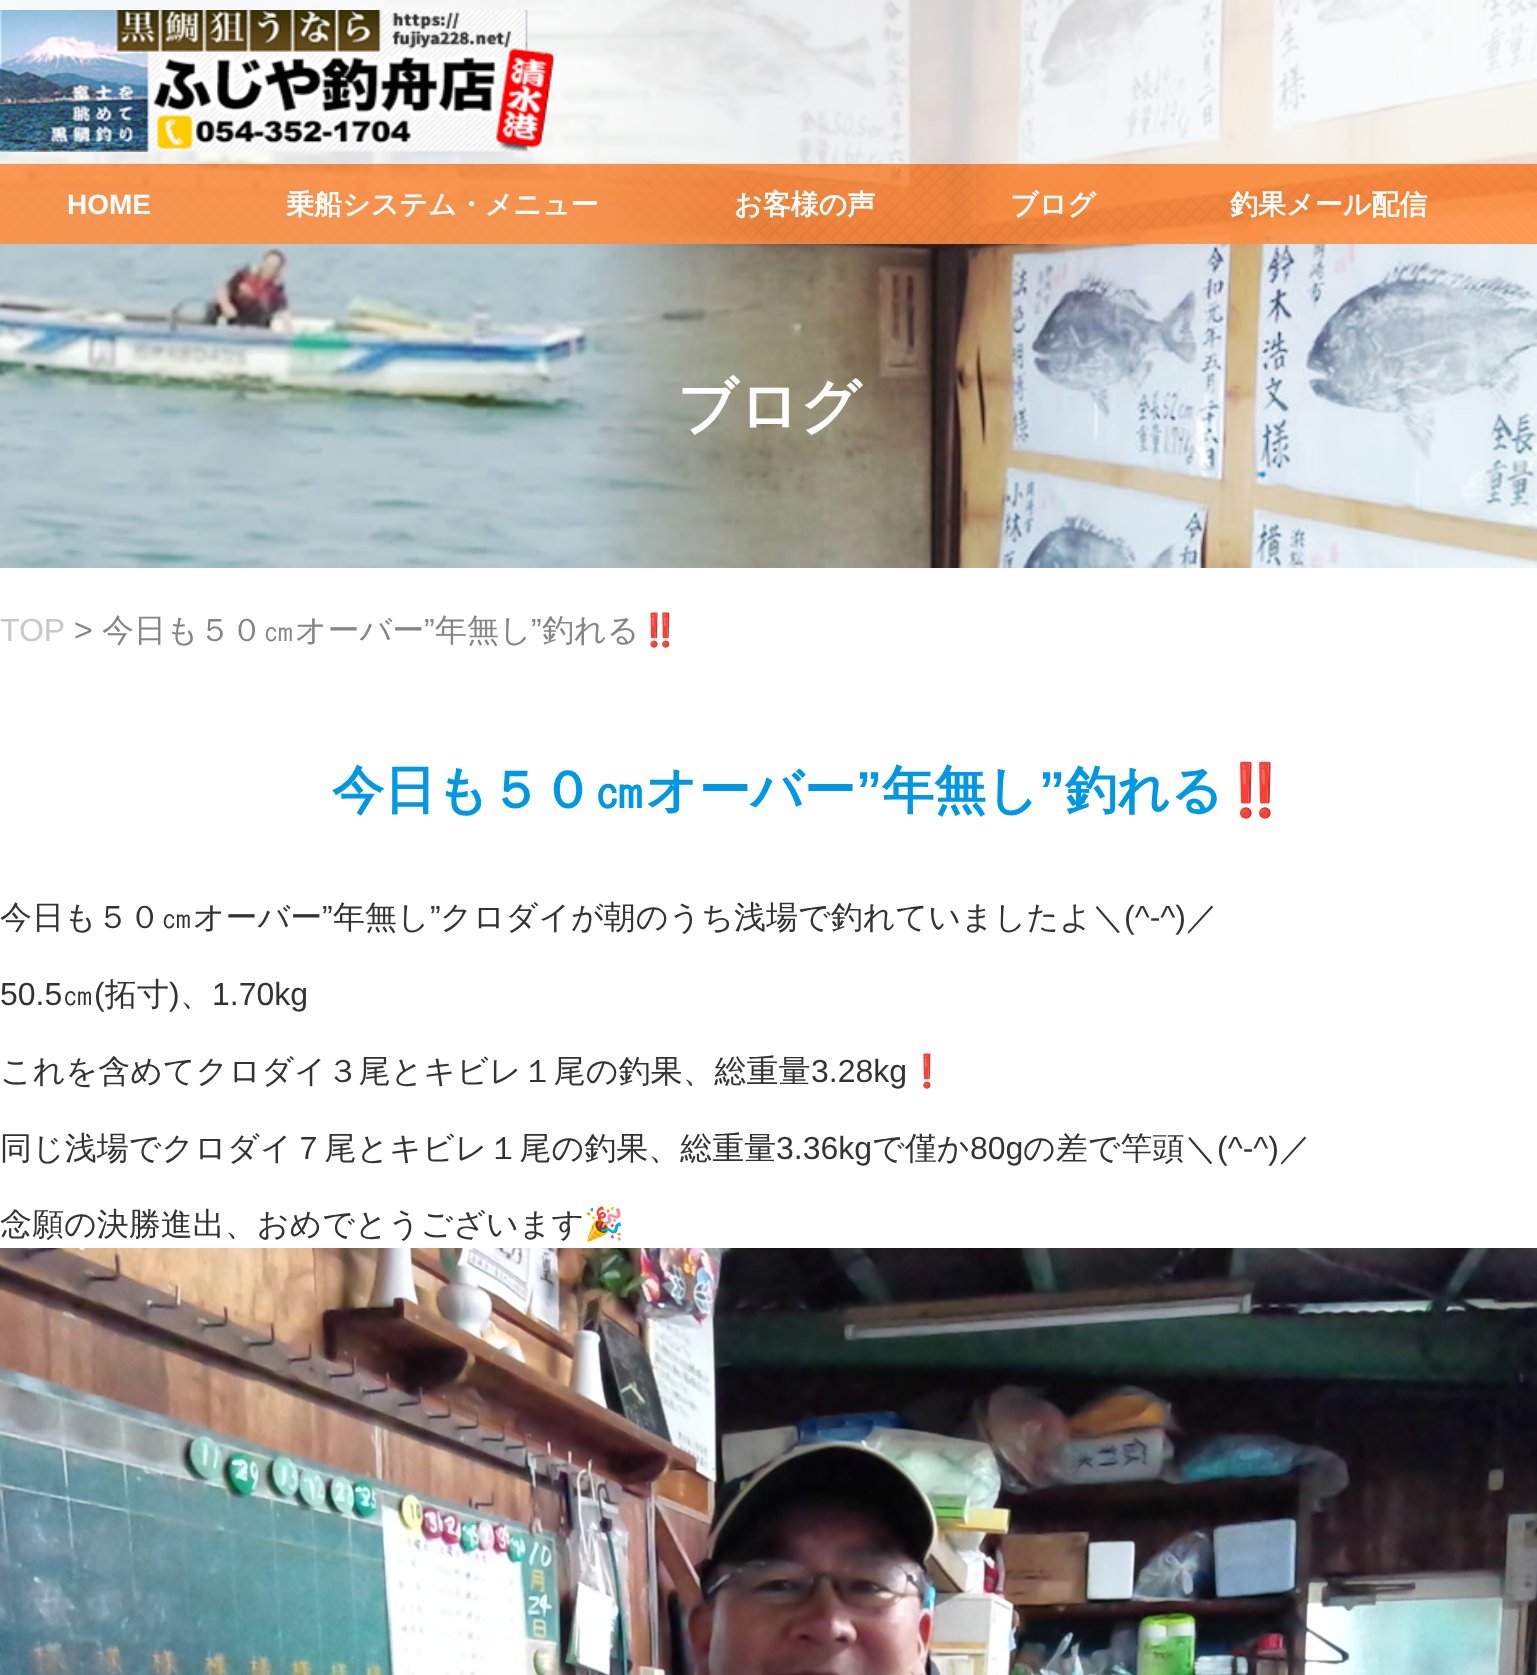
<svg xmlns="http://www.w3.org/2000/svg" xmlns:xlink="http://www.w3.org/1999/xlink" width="1537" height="1675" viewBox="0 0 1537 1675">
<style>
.cls-1{font:bold 28px Liberation Sans;fill:#ffffff}
.cls-2{font:bold 28px WenQuanYi Zen Hei;fill:#ffffff}
.cls-3{font:bold 60px WenQuanYi Zen Hei;fill:#ffffff}
.cls-4{font:32px Liberation Sans;fill:#c8c8c8}
.cls-5{font:32px Liberation Sans;fill:#858585}
.cls-6{font:500 32px WenQuanYi Zen Hei;fill:#858585}
.cls-7{font:32px Noto Color Emoji;fill:#858585}
.cls-8{font:bold 52px WenQuanYi Zen Hei;fill:#0097e5}
.cls-9{font:bold 52px Liberation Sans;fill:#0097e5}
.cls-10{font:bold 52px Noto Color Emoji;fill:#0097e5}
.cls-11{font:500 32px WenQuanYi Zen Hei;fill:#333333}
.cls-12{font:32px Liberation Sans;fill:#333333}
.cls-13{font:32px Noto Color Emoji;fill:#333333}
</style>
<rect width="100%" height="100%" fill="#ffffff"/>
<image xlink:href="image0.png" x="0" y="0" width="1537" height="568"/>
<rect fill="#ffffff" fill-opacity="0.8" x="0" y="0" width="1537" height="164"/>
<image xlink:href="image1.png" x="0" y="10" width="554" height="142"/>
<image xlink:href="image2.png" x="0" y="164" width="1537" height="80"/>
<image xlink:href="image3.png" x="0" y="1248" width="1537" height="427"/>
<text class="cls-1" x="67" y="214">HOME</text>
<text class="cls-2" x="286" y="214">乗船システム・メニュー</text>
<text class="cls-2" x="734" y="214">お客様の声</text>
<text class="cls-2" x="1010" y="214">ブログ</text>
<text class="cls-2" x="1230" y="214">釣果メール配信</text>
<text class="cls-3" x="677" y="427">ブログ</text>
<text class="cls-4" x="0" y="641">TOP</text>
<text class="cls-5" x="74" y="641">&gt;</text>
<text class="cls-6" x="102" y="641">今日も５０㎝オーバー</text>
<text class="cls-5" x="424" y="641">”</text>
<text class="cls-6" x="435" y="641">年無し</text>
<text class="cls-5" x="531" y="641">”</text>
<text class="cls-6" x="542" y="641">釣れる</text>
<text class="cls-7" x="640" y="641">‼️</text>
<text class="cls-8" x="332" y="808">今日も５０㎝オーバー</text>
<text class="cls-9" x="856" y="808">”</text>
<text class="cls-8" x="882" y="808">年無し</text>
<text class="cls-9" x="1039" y="808">”</text>
<text class="cls-8" x="1065" y="808">釣れる</text>
<text class="cls-10" x="1223" y="808">‼️</text>
<text class="cls-11" x="0" y="928">今日も５０㎝オーバー</text>
<text class="cls-12" x="322" y="928">”</text>
<text class="cls-11" x="333" y="928">年無し</text>
<text class="cls-12" x="430" y="928">”</text>
<text class="cls-11" x="440" y="928">クロダイが朝のうち浅場で釣れていましたよ＼</text>
<text class="cls-12" x="1124" y="928">(^-^)</text>
<text class="cls-11" x="1186" y="928">／</text>
<text class="cls-12" x="0" y="1005">50.5</text>
<text class="cls-11" x="62" y="1005">㎝</text>
<text class="cls-12" x="94" y="1005">(</text>
<text class="cls-11" x="105" y="1005">拓寸</text>
<text class="cls-12" x="169" y="1005">)</text>
<text class="cls-11" x="180" y="1005">、</text>
<text class="cls-12" x="212" y="1005">1.70kg</text>
<text class="cls-11" x="0" y="1082">これを含めてクロダイ３尾とキビレ１尾の釣果、総重量</text>
<text class="cls-12" x="811" y="1082">3.28kg</text>
<text class="cls-13" x="907" y="1082">❗️</text>
<text class="cls-11" x="0" y="1159">同じ浅場でクロダイ７尾とキビレ１尾の釣果、総重量</text>
<text class="cls-12" x="776" y="1159">3.36kg</text>
<text class="cls-11" x="872" y="1159">で僅か</text>
<text class="cls-12" x="970" y="1159">80g</text>
<text class="cls-11" x="1023" y="1159">の差で竿頭＼</text>
<text class="cls-12" x="1217" y="1159">(^-^)</text>
<text class="cls-11" x="1279" y="1159">／</text>
<text class="cls-11" x="0" y="1235">念願の決勝進出、おめでとうございます</text>
<text class="cls-13" x="584" y="1235">🎉</text>
</svg>
